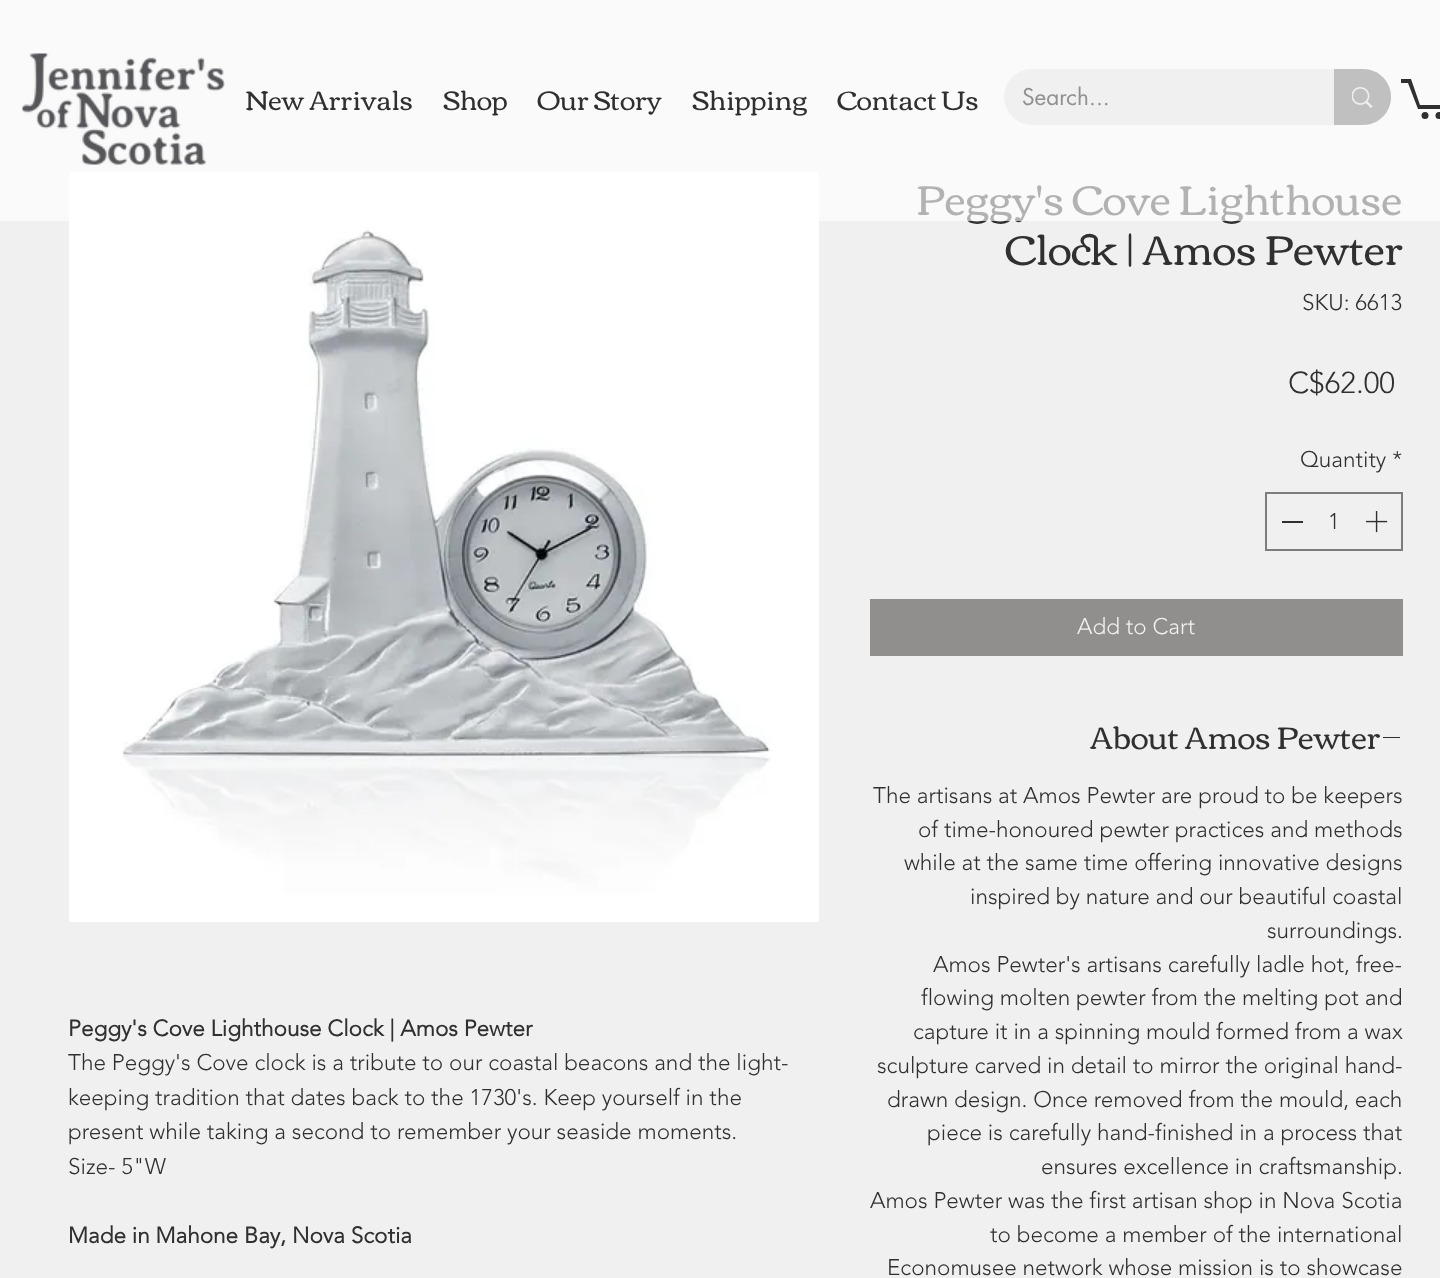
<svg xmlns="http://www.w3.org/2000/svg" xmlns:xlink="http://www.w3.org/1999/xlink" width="1440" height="1278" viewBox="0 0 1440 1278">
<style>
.cls-1{font:bold 22.5px 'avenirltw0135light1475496';fill:#303030}
.cls-2{font:300 22.5px 'avenirltw0135light1475496';fill:#303030}
.cls-3{font:42px Corben;fill:#303030}
.cls-4{font:22.5px futura;fill:#909090}
.cls-5{font:27px Corben;fill:#303030}
.cls-6{font:300 30px 'avenirltw0135light1475496';fill:#303030}
.cls-7{font:300 22.5px 'avenirltw0135light1475496';fill:#f0f0f0}
.cls-8{font:31.5px Corben;fill:#303030}
</style>
<rect width="100%" height="100%" fill="#f0f0f0"/>
<image xlink:href="image2.png" x="69" y="172" width="750" height="750"/>
<rect fill="none" stroke="#7d7d7d" stroke-width="2" x="1266" y="493" width="136" height="57"/>
<rect fill="#303030" x="1282" y="521" width="21" height="2"/>
<image xlink:href="image3.png" x="1366" y="511" width="22" height="22"/>
<rect fill="#918e8e" x="870" y="599" width="533" height="57"/>
<rect fill="#303030" x="1383" y="737" width="17" height="1"/>
<text class="cls-1" x="68" y="1036">Peggy's Cove Lighthouse Clock | Amos Pewter</text>
<text class="cls-2"><tspan x="68" y="1070">The Peggy's Cove clock is a tribute to our coastal beacons and the light-</tspan><tspan x="68" y="1105">keeping tradition that dates back to the 1730's. Keep yourself in the</tspan><tspan x="68" y="1139">present while taking a second to remember your seaside moments.</tspan><tspan x="68" y="1174">Size- 5"W</tspan></text>
<text class="cls-1" x="68" y="1243">Made in Mahone Bay, Nova Scotia</text>
<text class="cls-3" x="916" y="215">Peggy's Cove Lighthouse</text>
<rect fill="#ffffff" fill-opacity="0.63" x="0" y="0" width="1440" height="221"/>
<circle fill="#303030" cx="1425" cy="115.5" r="3.5"/>
<circle fill="#303030" cx="1439" cy="115.5" r="3.5"/>
<path fill="#303030" d="M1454 90L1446 109H1418L1408 83H1401V79H1411L1420 105H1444L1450 90"/>
<rect fill="#f0f0f0" x="1004" y="69" width="387" height="56" rx="28"/>
<text class="cls-4" x="1022" y="105">Search...</text>
<path fill="#c0c0c0" d="M1334 69H1363C1378.5 69 1391 81.5 1391 97C1391 112.5 1378.5 125 1363 125H1334Z"/>
<image xlink:href="image1.png" x="1352" y="87" width="21" height="21"/>
<text class="cls-5" x="837" y="110">Contact Us</text>
<text class="cls-5" x="692" y="110">Shipping</text>
<text class="cls-5" x="537" y="110">Our Story</text>
<text class="cls-5" x="443" y="110">Shop</text>
<text class="cls-5" x="245" y="110">New Arrivals</text>
<image xlink:href="image0.png" x="22" y="53" width="203" height="112"/>
<text class="cls-3" x="1005" y="265">Clock | Amos Pewter</text>
<text class="cls-2" x="1302" y="310">SKU: 6613</text>
<text class="cls-6" x="1288" y="393">C$62.00</text>
<text class="cls-2" x="1300" y="467">Quantity *</text>
<text class="cls-2" x="1328" y="529">1</text>
<text class="cls-7" x="1077" y="634">Add to Cart</text>
<text class="cls-8" x="1090" y="749">About Amos Pewter</text>
<text class="cls-2" x="873" y="803">The artisans at Amos Pewter are proud to be keepers</text>
<text class="cls-2" x="918" y="837">of time-honoured pewter practices and methods</text>
<text class="cls-2" x="904" y="870">while at the same time offering innovative designs</text>
<text class="cls-2" x="970" y="904">inspired by nature and our beautiful coastal</text>
<text class="cls-2" x="1267" y="938">surroundings.</text>
<text class="cls-2" x="933" y="972">Amos Pewter's artisans carefully ladle hot, free-</text>
<text class="cls-2" x="921" y="1005">flowing molten pewter from the melting pot and</text>
<text class="cls-2" x="913" y="1039">capture it in a spinning mould formed from a wax</text>
<text class="cls-2" x="877" y="1073">sculpture carved in detail to mirror the original hand-</text>
<text class="cls-2" x="887" y="1107">drawn design. Once removed from the mould, each</text>
<text class="cls-2" x="927" y="1140">piece is carefully hand-finished in a process that</text>
<text class="cls-2" x="1041" y="1174">ensures excellence in craftsmanship.</text>
<text class="cls-2" x="870" y="1208">Amos Pewter was the first artisan shop in Nova Scotia</text>
<text class="cls-2" x="990" y="1242">to become a member of the international</text>
<text class="cls-2" x="887" y="1275">Economusee network whose mission is to showcase</text>
</svg>
